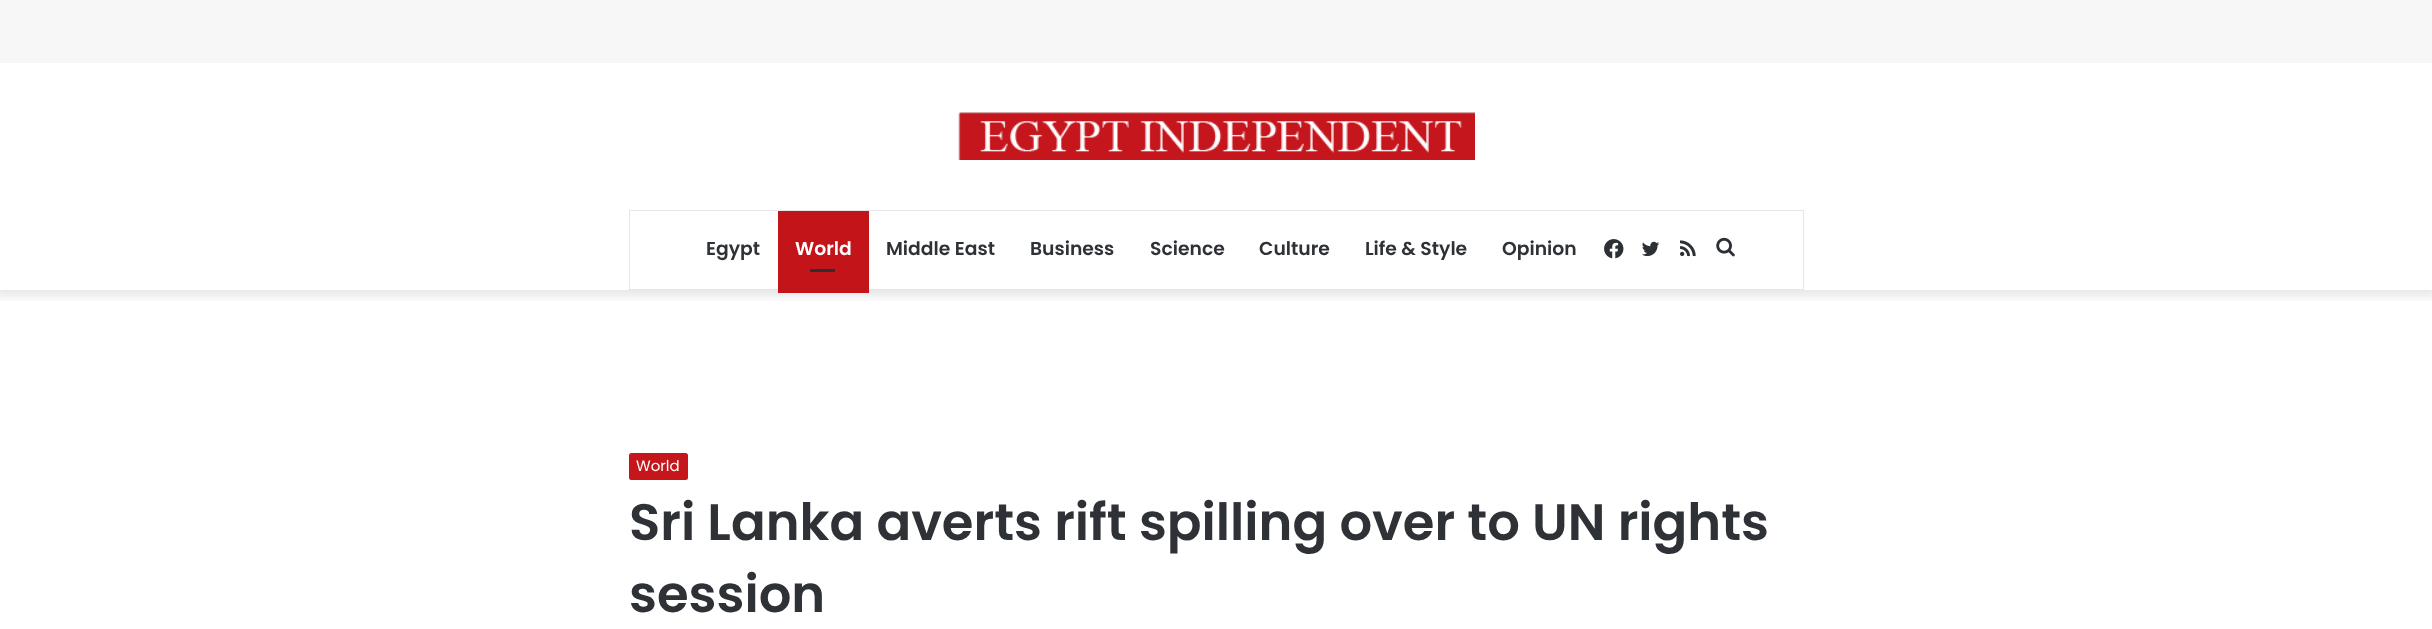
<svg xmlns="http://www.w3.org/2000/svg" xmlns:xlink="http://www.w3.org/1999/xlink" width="2432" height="629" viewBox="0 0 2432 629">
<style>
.cls-1{font:600 18.75px Poppins;fill:#2e3136}
.cls-2{font:600 18.75px Poppins;fill:#ffffff}
.cls-3{font:15px Poppins;fill:#ffffff}
.cls-4{font:600 51.25px Poppins;fill:#2e3136}
</style>
<defs>
<clipPath id="clip1"><rect x="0" y="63" width="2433" height="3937"/></clipPath>
<clipPath id="clip2"><rect x="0" y="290" width="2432" height="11"/></clipPath>
</defs>
<rect width="100%" height="100%" fill="#f7f7f7"/>
<rect fill="#ffffff" x="0" y="63" width="2432" height="566"/>
<g clip-path="url(#clip1)">
<g clip-path="url(#clip2)">
<rect fill="#000000" fill-opacity="0.1" filter="blur(6px)" x="-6" y="56" width="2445" height="240"/>
</g>
</g>
<image xlink:href="image0.png" x="958" y="112" width="517" height="48"/>
<rect fill="none" stroke="#e6e6e6" x="629.5" y="210.5" width="1174" height="79"/>
<rect fill="#c31419" x="778" y="211" width="91" height="82"/>
<rect fill="#2c2f34" x="810" y="269" width="25" height="3"/>
<image xlink:href="image1.png" x="1604" y="239" width="20" height="20"/>
<image xlink:href="image2.png" x="1642" y="241" width="18" height="16"/>
<image xlink:href="image3.png" x="1680" y="240" width="16" height="17"/>
<image xlink:href="image4.png" x="1716" y="237" width="19" height="20"/>
<rect fill="#c4161b" x="629" y="453" width="59" height="27" rx="2.5"/>
<text class="cls-1" x="706" y="255">Egypt</text>
<text class="cls-2" x="795" y="255">World</text>
<text class="cls-1" x="886" y="255">Middle East</text>
<text class="cls-1" x="1030" y="255">Business</text>
<text class="cls-1" x="1150" y="255">Science</text>
<text class="cls-1" x="1259" y="255">Culture</text>
<text class="cls-1" x="1365" y="255">Life &amp; Style</text>
<text class="cls-1" x="1502" y="255">Opinion</text>
<text class="cls-3" x="636" y="471">World</text>
<text class="cls-4"><tspan x="629" y="540">Sri Lanka averts rift spilling over to UN rights</tspan><tspan x="629" y="612">session</tspan></text>
</svg>
